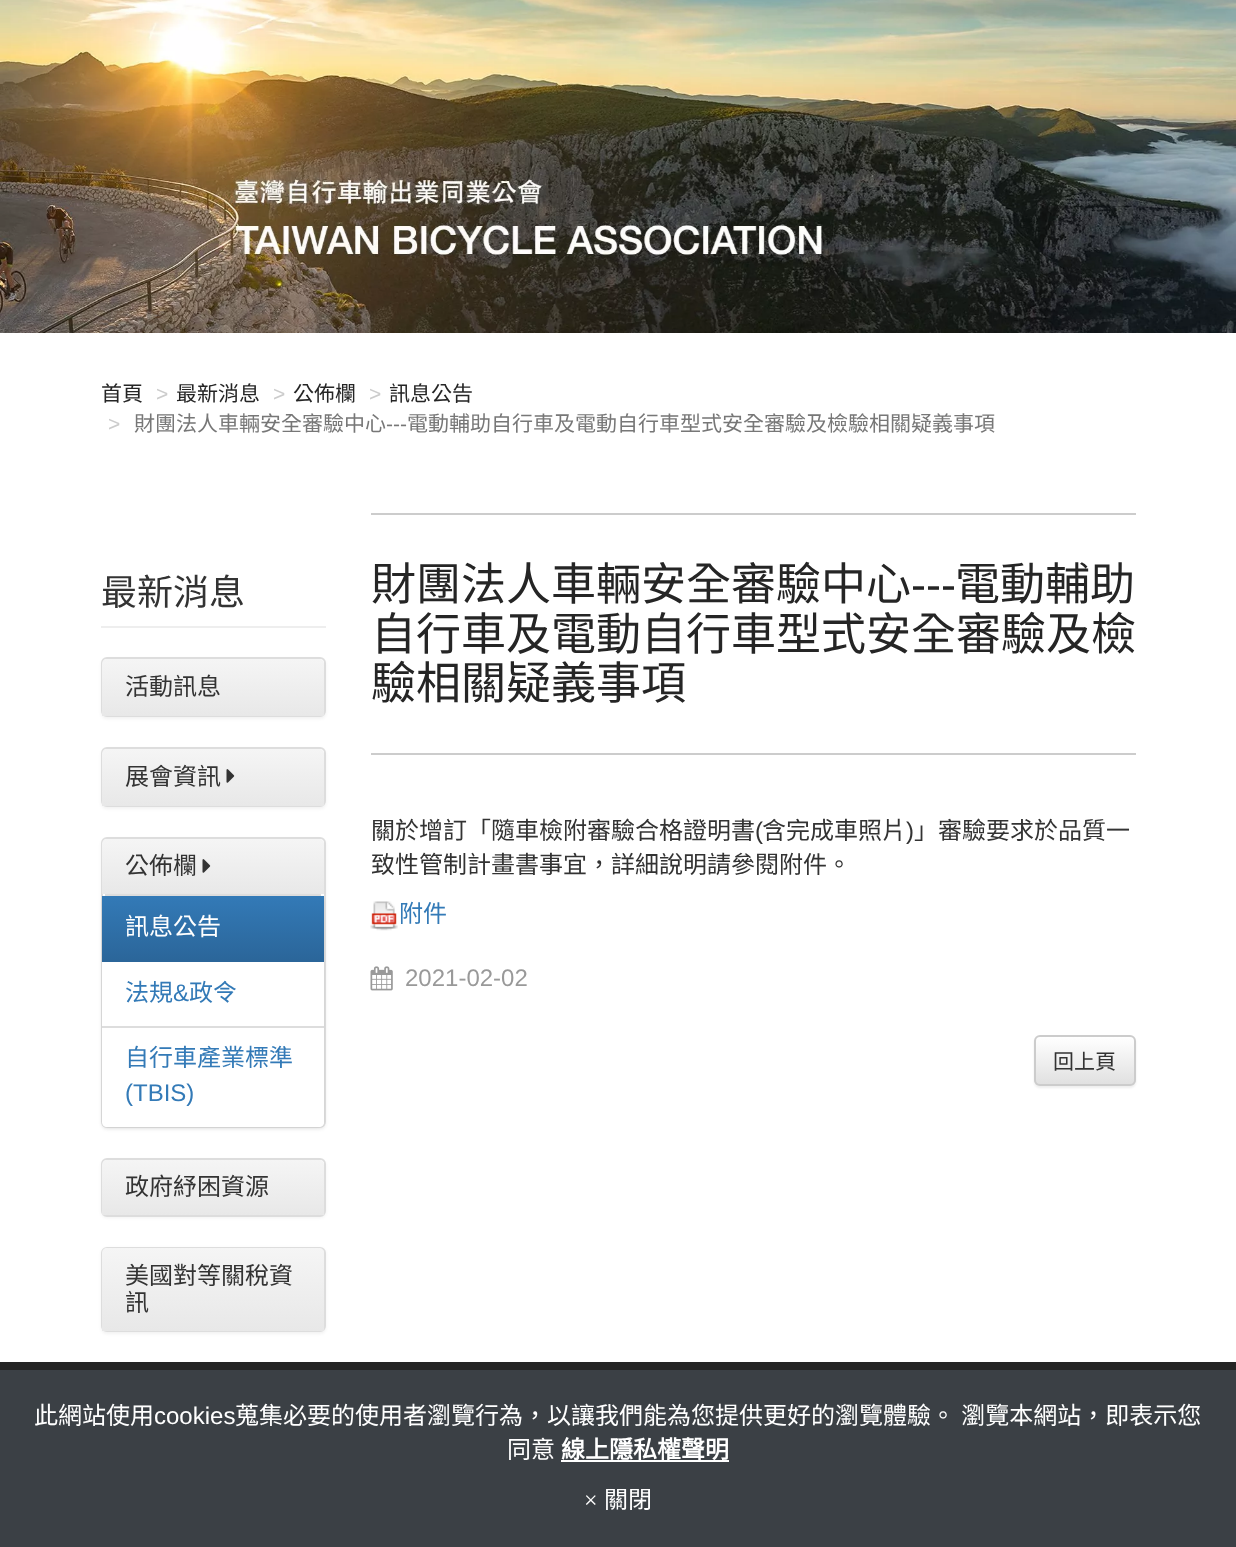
<svg xmlns="http://www.w3.org/2000/svg" xmlns:xlink="http://www.w3.org/1999/xlink" width="1236" height="1547" viewBox="0 0 1236 1547">
<style>
.cls-1{font:21px Noto Sans CJK TC;fill:#252525}
.cls-2{font:21px Liberation Sans;fill:#cccccc}
.cls-3{font:21px Noto Sans CJK TC;fill:#777777}
.cls-4{font:21px Liberation Sans;fill:#777777}
.cls-5{font:36px Noto Sans CJK TC;fill:#333333}
.cls-6{font:24px Noto Sans CJK TC;fill:#333333}
.cls-7{font:24px Noto Sans CJK TC;fill:#ffffff}
.cls-8{font:24px Noto Sans CJK TC;fill:#337ab7}
.cls-9{font:24px Liberation Sans;fill:#337ab7}
.cls-10{font:45px Noto Sans CJK TC;fill:#252525}
.cls-11{font:45px Liberation Sans;fill:#252525}
.cls-12{font:24px Liberation Sans;fill:#333333}
.cls-13{font:24px Liberation Sans;fill:#999999}
.cls-14{font:21px Noto Sans CJK TC;fill:#333333}
.cls-15{font:24px Liberation Sans;fill:#ffffff}
.cls-16{font:bold 24px Noto Sans CJK TC;fill:#ffffff}
.cls-17{font:24px Liberation Serif;fill:#ffffff}
</style>
<defs>
<linearGradient id="g1" gradientUnits="userSpaceOnUse" x1="213" y1="659" x2="213" y2="716"><stop offset="0" stop-color="#f5f5f5"/><stop offset="1" stop-color="#e8e8e8"/></linearGradient>
<linearGradient id="g2" gradientUnits="userSpaceOnUse" x1="213" y1="749" x2="213" y2="806"><stop offset="0" stop-color="#f5f5f5"/><stop offset="1" stop-color="#e8e8e8"/></linearGradient>
<linearGradient id="g3" gradientUnits="userSpaceOnUse" x1="213" y1="839" x2="213" y2="894"><stop offset="0" stop-color="#f5f5f5"/><stop offset="1" stop-color="#e8e8e8"/></linearGradient>
<linearGradient id="g4" gradientUnits="userSpaceOnUse" x1="213" y1="896" x2="213" y2="960"><stop offset="0" stop-color="#337ab7"/><stop offset="1" stop-color="#2b669a"/></linearGradient>
<linearGradient id="g5" gradientUnits="userSpaceOnUse" x1="213" y1="1160" x2="213" y2="1215"><stop offset="0" stop-color="#f5f5f5"/><stop offset="1" stop-color="#e8e8e8"/></linearGradient>
<linearGradient id="g6" gradientUnits="userSpaceOnUse" x1="213" y1="1248" x2="213" y2="1331"><stop offset="0" stop-color="#f5f5f5"/><stop offset="1" stop-color="#e8e8e8"/></linearGradient>
<clipPath id="clip1"><rect x="1034" y="1035" width="102" height="51" rx="6"/></clipPath>
<linearGradient id="g7" gradientUnits="userSpaceOnUse" x1="1085" y1="1037" x2="1085" y2="1085"><stop offset="0" stop-color="#ffffff"/><stop offset="1" stop-color="#e0e0e0"/></linearGradient>
</defs>
<rect width="100%" height="100%" fill="#ffffff"/>
<image xlink:href="image0.png" x="0" y="0" width="1236" height="333"/>
<rect fill="#eeeeee" x="101" y="626" width="225" height="2"/>
<rect fill="#000000" fill-opacity="0.05" filter="blur(1.5px)" x="101" y="659" width="225" height="60" rx="6"/>
<rect fill="#ffffff" stroke="#dddddd" stroke-width="2" x="102" y="658" width="223" height="58" rx="5"/>
<path fill="url(#g1)" d="M107 659H319C322 659 324 661 324 664V716H102V664C102 661 104 659 107 659Z"/>
<rect fill="#000000" fill-opacity="0.05" filter="blur(1.5px)" x="101" y="749" width="225" height="60" rx="6"/>
<rect fill="#ffffff" stroke="#dddddd" stroke-width="2" x="102" y="748" width="223" height="58" rx="5"/>
<path fill="url(#g2)" d="M107 749H319C322 749 324 751 324 754V806H102V754C102 751 104 749 107 749Z"/>
<image xlink:href="image1.png" x="226" y="769" width="9" height="14"/>
<rect fill="#000000" fill-opacity="0.05" filter="blur(1.5px)" x="101" y="839" width="225" height="291" rx="6"/>
<rect fill="#ffffff" stroke="#dddddd" stroke-width="2" x="102" y="838" width="223" height="289" rx="5"/>
<path fill="url(#g3)" d="M107 839H319C322 839 324 841 324 844V894H102V844C102 841 104 839 107 839Z"/>
<image xlink:href="image2.png" x="202" y="859" width="9" height="14"/>
<rect fill="#000000" fill-opacity="0.07" filter="blur(1.5px)" x="102" y="896" width="222" height="232" rx="6"/>
<rect fill="#dddddd" x="105" y="894" width="216" height="2"/>
<rect fill="url(#g4)" x="102" y="896" width="222" height="64"/>
<rect fill="#2b669a" x="102" y="960" width="222" height="2"/>
<rect fill="#ffffff" x="102" y="962" width="222" height="64"/>
<path fill="#ffffff" d="M102 1026H324V1122C324 1125 322 1127 319 1127H107C104 1127 102 1125 102 1122Z"/>
<rect fill="#dddddd" x="102" y="1026" width="222" height="2"/>
<rect fill="#000000" fill-opacity="0.05" filter="blur(1.5px)" x="101" y="1160" width="225" height="58" rx="6"/>
<rect fill="#ffffff" stroke="#dddddd" stroke-width="2" x="102" y="1159" width="223" height="57" rx="5"/>
<path fill="url(#g5)" d="M107 1160H319C322 1160 324 1162 324 1165V1215H102V1165C102 1162 104 1160 107 1160Z"/>
<rect fill="#000000" fill-opacity="0.05" filter="blur(1.5px)" x="101" y="1248" width="225" height="86" rx="6"/>
<rect fill="none" stroke="#dddddd" stroke-width="2" x="102" y="1248" width="223" height="83" rx="5"/>
<path fill="url(#g6)" d="M107 1248H319C322 1248 324 1250 324 1253V1331H102V1253C102 1250 104 1248 107 1248Z"/>
<rect fill="#cccccc" x="371" y="513" width="765" height="2"/>
<rect fill="#cccccc" x="371" y="753" width="765" height="2"/>
<image xlink:href="image3.png" x="370" y="901" width="28" height="30"/>
<image xlink:href="image4.png" x="370" y="966" width="23" height="25"/>
<rect fill="#000000" fill-opacity="0.07" filter="blur(1px)" x="1034" y="1037" width="102" height="51" rx="6"/>
<g clip-path="url(#clip1)">
<rect fill="url(#g7)" x="1034" y="1037" width="102" height="48"/>
</g>
<rect fill="none" stroke="#cccccc" stroke-width="2" x="1035" y="1036" width="100" height="49" rx="5"/>
<rect fill="#252525" x="0" y="1362" width="1236" height="8"/>
<rect fill="#3b4045" x="0" y="1370" width="1236" height="177"/>
<rect fill="#ffffff" x="561" y="1460" width="168" height="2"/>
<text class="cls-1" x="101" y="401">首頁</text>
<text class="cls-2" x="156" y="401">&gt;</text>
<text class="cls-1" x="176" y="401">最新消息</text>
<text class="cls-2" x="273" y="401">&gt;</text>
<text class="cls-1" x="293" y="401">公佈欄</text>
<text class="cls-2" x="369" y="401">&gt;</text>
<text class="cls-1" x="389" y="401">訊息公告</text>
<text class="cls-2" x="108" y="431">&gt;</text>
<text class="cls-3" x="134" y="431">財團法人車輛安全審驗中心</text>
<text class="cls-4" x="386" y="431">---</text>
<text class="cls-3" x="407" y="431">電動輔助自行車及電動自行車型式安全審驗及檢驗相關疑義事項</text>
<text class="cls-5" x="101" y="605">最新消息</text>
<text class="cls-6" x="125" y="695">活動訊息</text>
<text class="cls-6" x="125" y="785">展會資訊</text>
<text class="cls-6" x="125" y="874">公佈欄</text>
<text class="cls-7" x="125" y="935">訊息公告</text>
<text class="cls-8" x="125" y="1001">法規</text>
<text class="cls-9" x="173" y="1001">&amp;</text>
<text class="cls-8" x="189" y="1001">政令</text>
<text class="cls-8" x="125" y="1066">自行車產業標準</text>
<text class="cls-9" x="125" y="1101">(TBIS)</text>
<text class="cls-6" x="125" y="1195">政府紓困資源</text>
<text class="cls-6"><tspan x="125" y="1284">美國對等關稅資</tspan><tspan x="125" y="1311">訊</tspan></text>
<text class="cls-10" x="371" y="600">財團法人車輛安全審驗中心</text>
<text class="cls-11" x="911" y="600">---</text>
<text class="cls-10" x="955" y="600">電動輔助</text>
<text class="cls-10"><tspan x="371" y="650">自行車及電動自行車型式安全審驗及檢</tspan><tspan x="371" y="699">驗相關疑義事項</tspan></text>
<text class="cls-6" x="371" y="839">關於增訂「隨車檢附審驗合格證明書</text>
<text class="cls-12" x="755" y="839">(</text>
<text class="cls-6" x="762" y="839">含完成車照片</text>
<text class="cls-12" x="906" y="839">)</text>
<text class="cls-6" x="914" y="839">」審驗要求於品質一</text>
<text class="cls-6" x="371" y="873">致性管制計畫書事宜，詳細說明請參閱附件。</text>
<text class="cls-8" x="399" y="922">附件</text>
<text class="cls-13" x="405" y="986">2021-02-02</text>
<text class="cls-14" x="1053" y="1069">回上頁</text>
<text class="cls-7" x="34" y="1424">此網站使用</text>
<text class="cls-15" x="154" y="1424">cookies</text>
<text class="cls-7" x="235" y="1424" word-spacing="1">蒐集必要的使用者瀏覽行為，以讓我們能為您提供更好的瀏覽體驗。 瀏覽本網站，即表示您</text>
<text class="cls-7" x="507" y="1458">同意</text>
<text class="cls-16" x="561" y="1458">線上隱私權聲明</text>
<text class="cls-17" x="584" y="1508">×</text>
<text class="cls-7" x="604" y="1508">關閉</text>
</svg>
